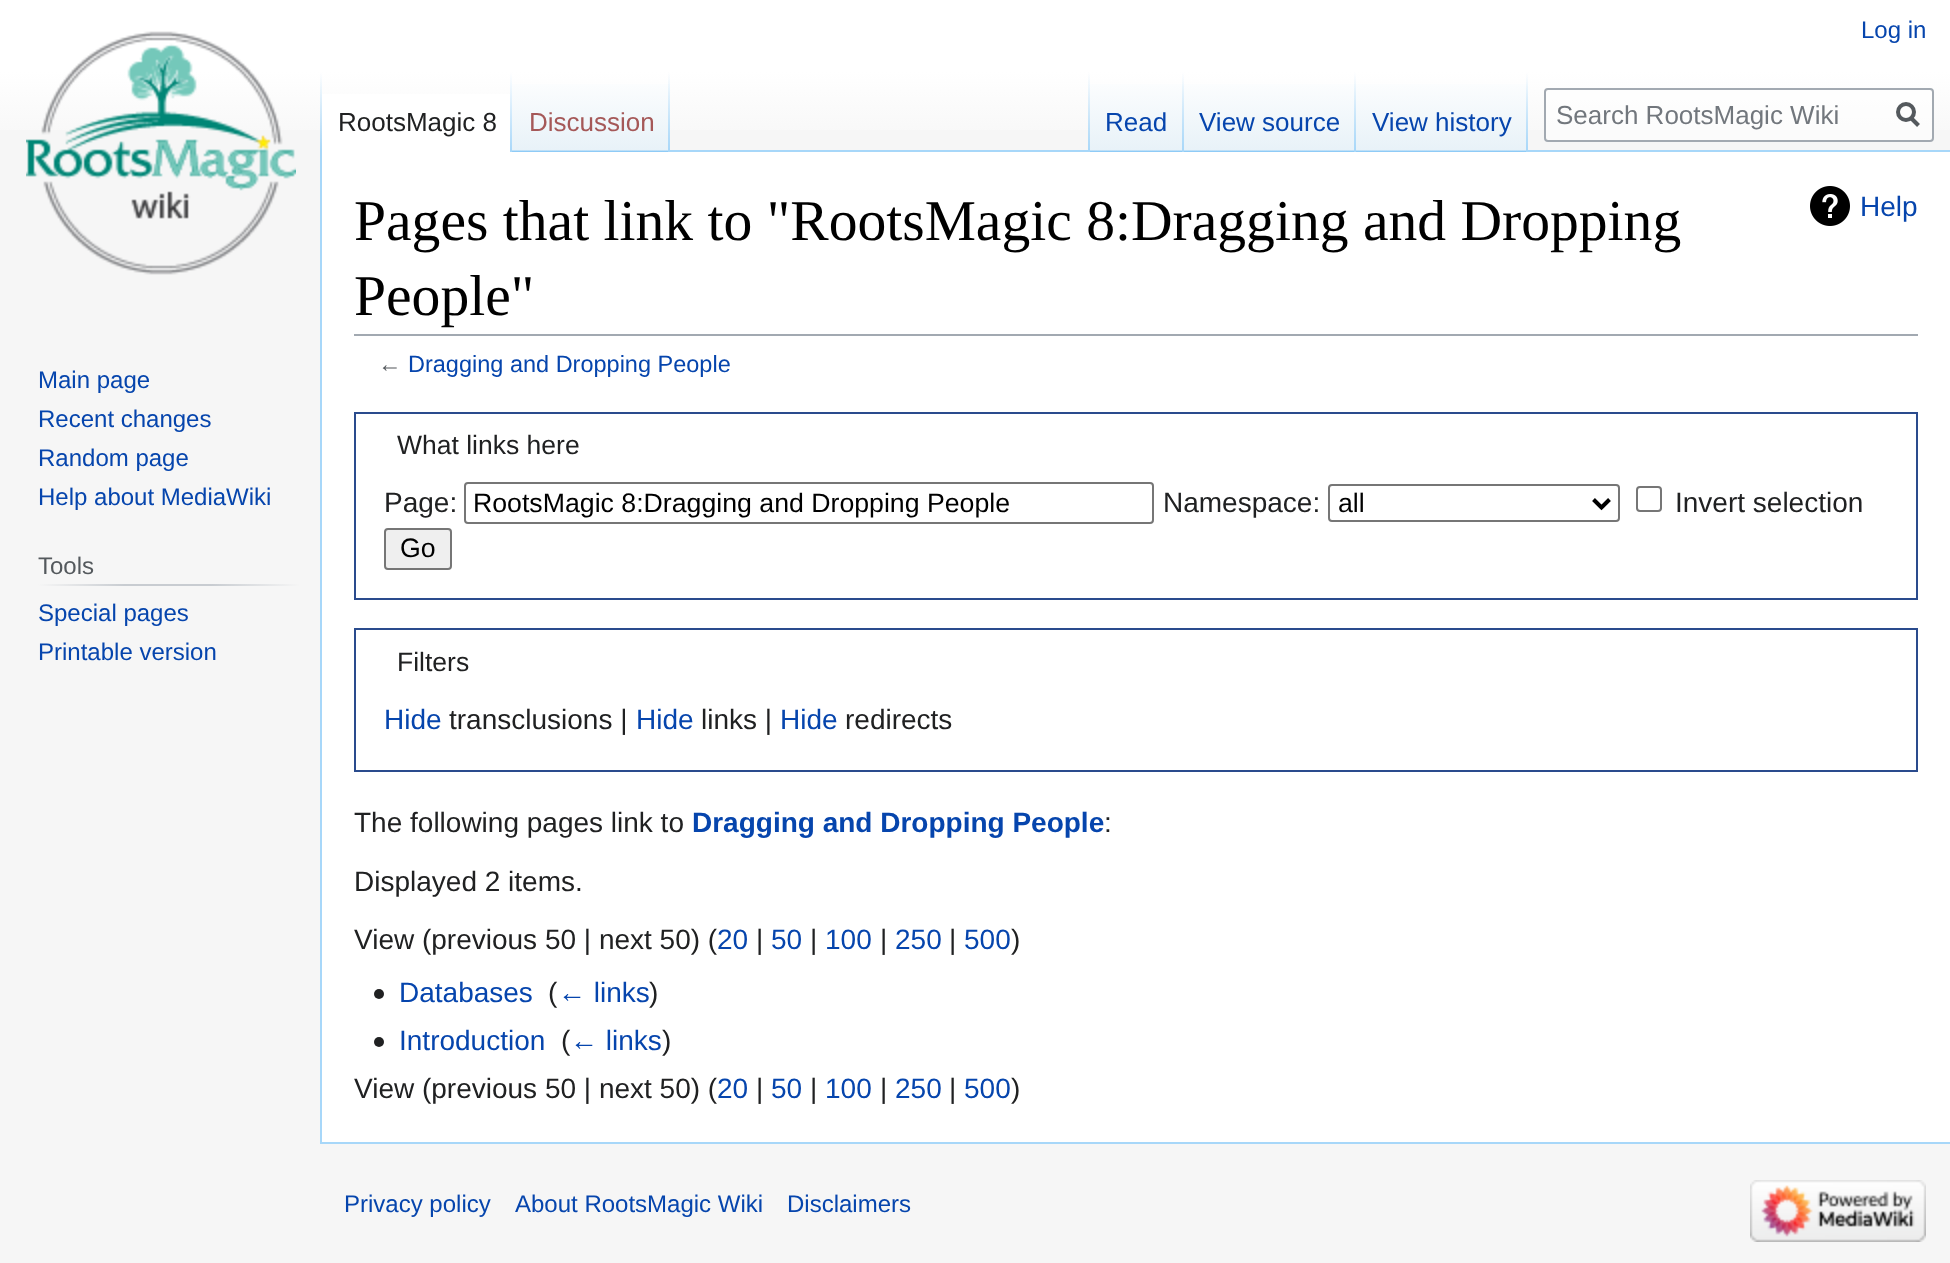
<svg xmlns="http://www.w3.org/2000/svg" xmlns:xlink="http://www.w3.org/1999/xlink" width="1950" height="1263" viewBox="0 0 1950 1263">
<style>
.cls-1{font:24px Liberation Sans;fill:#0645ad}
.cls-2{font:26px Liberation Sans;fill:#202122}
.cls-3{font:26px Liberation Sans;fill:#a55858}
.cls-4{font:26px Liberation Sans;fill:#0645ad}
.cls-5{font:26px Liberation Sans;fill:#72777d}
.cls-6{font:24px Liberation Sans;fill:#54595d}
.cls-7{font:57.6px Liberation Serif;fill:#000000}
.cls-8{font:28px Liberation Sans;fill:#0645ad}
.cls-9{font:23.5px Liberation Sans;fill:#54595d}
.cls-10{font:23.5px Liberation Sans;fill:#0645ad}
.cls-11{font:26.5px Liberation Sans;fill:#202122}
.cls-12{font:28px Liberation Sans;fill:#202122}
.cls-13{font:26.7px Liberation Sans;fill:#000000}
.cls-14{font:bold 28px Liberation Sans;fill:#0645ad}
</style>
<defs>
<linearGradient id="g1" gradientUnits="userSpaceOnUse" x1="975" y1="-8" x2="975" y2="152"><stop offset="0.5" stop-color="#ffffff"/><stop offset="1" stop-color="#f6f6f6"/></linearGradient>
<linearGradient id="g2" gradientUnits="userSpaceOnUse" x1="321" y1="72" x2="321" y2="152"><stop offset="0" stop-color="#a7d7f9" stop-opacity="0"/><stop offset="1" stop-color="#a7d7f9"/></linearGradient>
<linearGradient id="g3" gradientUnits="userSpaceOnUse" x1="511" y1="72" x2="511" y2="152"><stop offset="0" stop-color="#ffffff"/><stop offset="1" stop-color="#a7d7f9"/></linearGradient>
<linearGradient id="g4" gradientUnits="userSpaceOnUse" x1="591" y1="152" x2="591" y2="72"><stop offset="0" stop-color="#77c1f6"/><stop offset="0.03" stop-color="#e8f2f8"/><stop offset="1" stop-color="#ffffff"/></linearGradient>
<linearGradient id="g5" gradientUnits="userSpaceOnUse" x1="669" y1="72" x2="669" y2="152"><stop offset="0" stop-color="#a7d7f9" stop-opacity="0"/><stop offset="1" stop-color="#a7d7f9"/></linearGradient>
<linearGradient id="g6" gradientUnits="userSpaceOnUse" x1="1089" y1="72" x2="1089" y2="152"><stop offset="0" stop-color="#a7d7f9" stop-opacity="0"/><stop offset="1" stop-color="#a7d7f9"/></linearGradient>
<linearGradient id="g7" gradientUnits="userSpaceOnUse" x1="1137" y1="152" x2="1137" y2="72"><stop offset="0" stop-color="#77c1f6"/><stop offset="0.03" stop-color="#e8f2f8"/><stop offset="1" stop-color="#ffffff"/></linearGradient>
<linearGradient id="g8" gradientUnits="userSpaceOnUse" x1="1183" y1="72" x2="1183" y2="152"><stop offset="0" stop-color="#a7d7f9" stop-opacity="0"/><stop offset="1" stop-color="#a7d7f9"/></linearGradient>
<linearGradient id="g9" gradientUnits="userSpaceOnUse" x1="1270" y1="152" x2="1270" y2="72"><stop offset="0" stop-color="#77c1f6"/><stop offset="0.03" stop-color="#e8f2f8"/><stop offset="1" stop-color="#ffffff"/></linearGradient>
<linearGradient id="g10" gradientUnits="userSpaceOnUse" x1="1355" y1="72" x2="1355" y2="152"><stop offset="0" stop-color="#a7d7f9" stop-opacity="0"/><stop offset="1" stop-color="#a7d7f9"/></linearGradient>
<linearGradient id="g11" gradientUnits="userSpaceOnUse" x1="1442" y1="152" x2="1442" y2="72"><stop offset="0" stop-color="#77c1f6"/><stop offset="0.03" stop-color="#e8f2f8"/><stop offset="1" stop-color="#ffffff"/></linearGradient>
<linearGradient id="g12" gradientUnits="userSpaceOnUse" x1="1527" y1="72" x2="1527" y2="152"><stop offset="0" stop-color="#a7d7f9" stop-opacity="0"/><stop offset="1" stop-color="#a7d7f9"/></linearGradient>
<linearGradient id="g13" gradientUnits="userSpaceOnUse" x1="38" y1="585" x2="300" y2="585"><stop offset="0" stop-color="#f6f6f6"/><stop offset="0.33" stop-color="#c8ccd1"/><stop offset="0.66" stop-color="#c8ccd1"/><stop offset="1" stop-color="#f6f6f6"/></linearGradient>
</defs>
<rect width="100%" height="100%" fill="#f6f6f6"/>
<rect fill="url(#g1)" x="0" y="0" width="1950" height="130"/>
<rect fill="#a7d7f9" x="320" y="1142" width="1630" height="2"/>
<rect fill="#a7d7f9" x="320" y="150" width="2" height="994"/>
<rect fill="url(#g2)" x="320" y="72" width="2" height="80"/>
<rect fill="#ffffff" x="322" y="94" width="188" height="58"/>
<rect fill="url(#g3)" x="510" y="72" width="2" height="80"/>
<rect fill="url(#g4)" x="512" y="84" width="158" height="68"/>
<rect fill="url(#g5)" x="668" y="72" width="2" height="80"/>
<rect fill="#a7d7f9" x="670" y="150" width="1280" height="2"/>
<rect fill="url(#g6)" x="1088" y="72" width="2" height="80"/>
<rect fill="url(#g7)" x="1090" y="84" width="94" height="68"/>
<rect fill="url(#g8)" x="1182" y="72" width="2" height="80"/>
<rect fill="url(#g9)" x="1184" y="84" width="172" height="68"/>
<rect fill="url(#g10)" x="1354" y="72" width="2" height="80"/>
<rect fill="url(#g11)" x="1356" y="84" width="172" height="68"/>
<rect fill="url(#g12)" x="1526" y="72" width="2" height="80"/>
<rect fill="#ffffff" fill-opacity="0.5" stroke="#a2a9b1" stroke-width="2" x="1545" y="89" width="388" height="52" rx="3"/>
<path fill="none" stroke="#54595d" stroke-width="4" d="M1918.5 125.5L1910.5 117.5"/>
<circle fill="none" stroke="#54595d" stroke-width="4" cx="1906" cy="112" r="8"/>
<image xlink:href="image0.png" x="26" y="31" width="270" height="244"/>
<rect fill="url(#g13)" x="38" y="584" width="262" height="2"/>
<rect fill="#ffffff" x="322" y="152" width="1628" height="990"/>
<rect fill="#a2a9b1" x="354" y="334" width="1564" height="2"/>
<image xlink:href="image1.png" x="1810" y="186" width="40" height="40"/>
<rect fill="none" stroke="#2a4b8d" stroke-width="2" x="355" y="413" width="1562" height="186"/>
<rect fill="none" stroke="#767676" stroke-width="2" x="465" y="483" width="688" height="40" rx="3"/>
<rect fill="none" stroke="#767676" stroke-width="2" x="1329" y="485" width="290" height="36" rx="3"/>
<path fill="none" stroke="#000000" stroke-width="4" d="M1593.5 499.5L1601.5 507.5L1609.5 499.5"/>
<rect fill="none" stroke="#767676" stroke-width="2" x="1637" y="487" width="24" height="24" rx="3"/>
<rect fill="#efefef" stroke="#767676" stroke-width="2" x="385" y="529" width="66" height="40" rx="3"/>
<rect fill="none" stroke="#2a4b8d" stroke-width="2" x="355" y="629" width="1562" height="142"/>
<image xlink:href="image2.png" x="374" y="989" width="10" height="10"/>
<image xlink:href="image2.png" x="374" y="1037" width="10" height="10"/>
<image xlink:href="image3.png" x="1750" y="1180" width="176" height="62"/>
<text class="cls-1" x="1861" y="38">Log in</text>
<text class="cls-2" x="338" y="131">RootsMagic 8</text>
<text class="cls-3" x="529" y="131">Discussion</text>
<text class="cls-4" x="1105" y="131">Read</text>
<text class="cls-4" x="1199" y="131">View source</text>
<text class="cls-4" x="1372" y="131">View history</text>
<text class="cls-5" x="1556" y="124">Search RootsMagic Wiki</text>
<text class="cls-1"><tspan x="38" y="388">Main page</tspan><tspan x="38" y="427">Recent changes</tspan><tspan x="38" y="466">Random page</tspan><tspan x="38" y="505">Help about MediaWiki</tspan></text>
<text class="cls-6" x="38" y="574">Tools</text>
<text class="cls-1"><tspan x="38" y="621">Special pages</tspan><tspan x="38" y="660">Printable version</tspan></text>
<text class="cls-7"><tspan x="354" y="240">Pages that link to "RootsMagic 8:Dragging and Dropping</tspan><tspan x="354" y="315">People"</tspan></text>
<text class="cls-8" x="1860" y="216">Help</text>
<text class="cls-9" x="378" y="372">←</text>
<text class="cls-10" x="408" y="372">Dragging and Dropping People</text>
<text class="cls-11" x="397" y="454">What links here</text>
<text class="cls-12" x="384" y="512">Page:</text>
<text class="cls-13" x="473" y="512">RootsMagic 8:Dragging and Dropping People</text>
<text class="cls-12" x="1163" y="512">Namespace:</text>
<text class="cls-13" x="1338" y="512">all</text>
<text class="cls-12" x="1675" y="512">Invert selection</text>
<text class="cls-13" x="400" y="557">Go</text>
<text class="cls-11" x="397" y="671">Filters</text>
<text class="cls-8" x="384" y="729">Hide</text>
<text class="cls-12" x="449" y="729">transclusions |</text>
<text class="cls-8" x="636" y="729">Hide</text>
<text class="cls-12" x="701" y="729">links |</text>
<text class="cls-8" x="780" y="729">Hide</text>
<text class="cls-12" x="845" y="729">redirects</text>
<text class="cls-12" x="354" y="832">The following pages link to</text>
<text class="cls-14" x="692" y="832">Dragging and Dropping People</text>
<text class="cls-12" x="1104" y="832">:</text>
<text class="cls-12" x="354" y="891">Displayed 2 items.</text>
<text class="cls-12" x="354" y="949">View (previous 50 | next 50) (</text>
<text class="cls-8" x="717" y="949">20</text>
<text class="cls-12" x="756" y="949">|</text>
<text class="cls-8" x="771" y="949">50</text>
<text class="cls-12" x="810" y="949">|</text>
<text class="cls-8" x="825" y="949">100</text>
<text class="cls-12" x="880" y="949">|</text>
<text class="cls-8" x="895" y="949">250</text>
<text class="cls-12" x="949" y="949">|</text>
<text class="cls-8" x="964" y="949">500</text>
<text class="cls-12" x="1011" y="949">)</text>
<text class="cls-8" x="399" y="1002">Databases</text>
<text class="cls-12" x="548" y="1002">(</text>
<text class="cls-8" x="558" y="1002">← links</text>
<text class="cls-12" x="649" y="1002">)</text>
<text class="cls-8" x="399" y="1050">Introduction</text>
<text class="cls-12" x="561" y="1050">(</text>
<text class="cls-8" x="570" y="1050">← links</text>
<text class="cls-12" x="662" y="1050">)</text>
<text class="cls-12" x="354" y="1098">View (previous 50 | next 50) (</text>
<text class="cls-8" x="717" y="1098">20</text>
<text class="cls-12" x="756" y="1098">|</text>
<text class="cls-8" x="771" y="1098">50</text>
<text class="cls-12" x="810" y="1098">|</text>
<text class="cls-8" x="825" y="1098">100</text>
<text class="cls-12" x="880" y="1098">|</text>
<text class="cls-8" x="895" y="1098">250</text>
<text class="cls-12" x="949" y="1098">|</text>
<text class="cls-8" x="964" y="1098">500</text>
<text class="cls-12" x="1011" y="1098">)</text>
<text class="cls-1" x="344" y="1212">Privacy policy</text>
<text class="cls-1" x="515" y="1212">About RootsMagic Wiki</text>
<text class="cls-1" x="787" y="1212">Disclaimers</text>
</svg>
